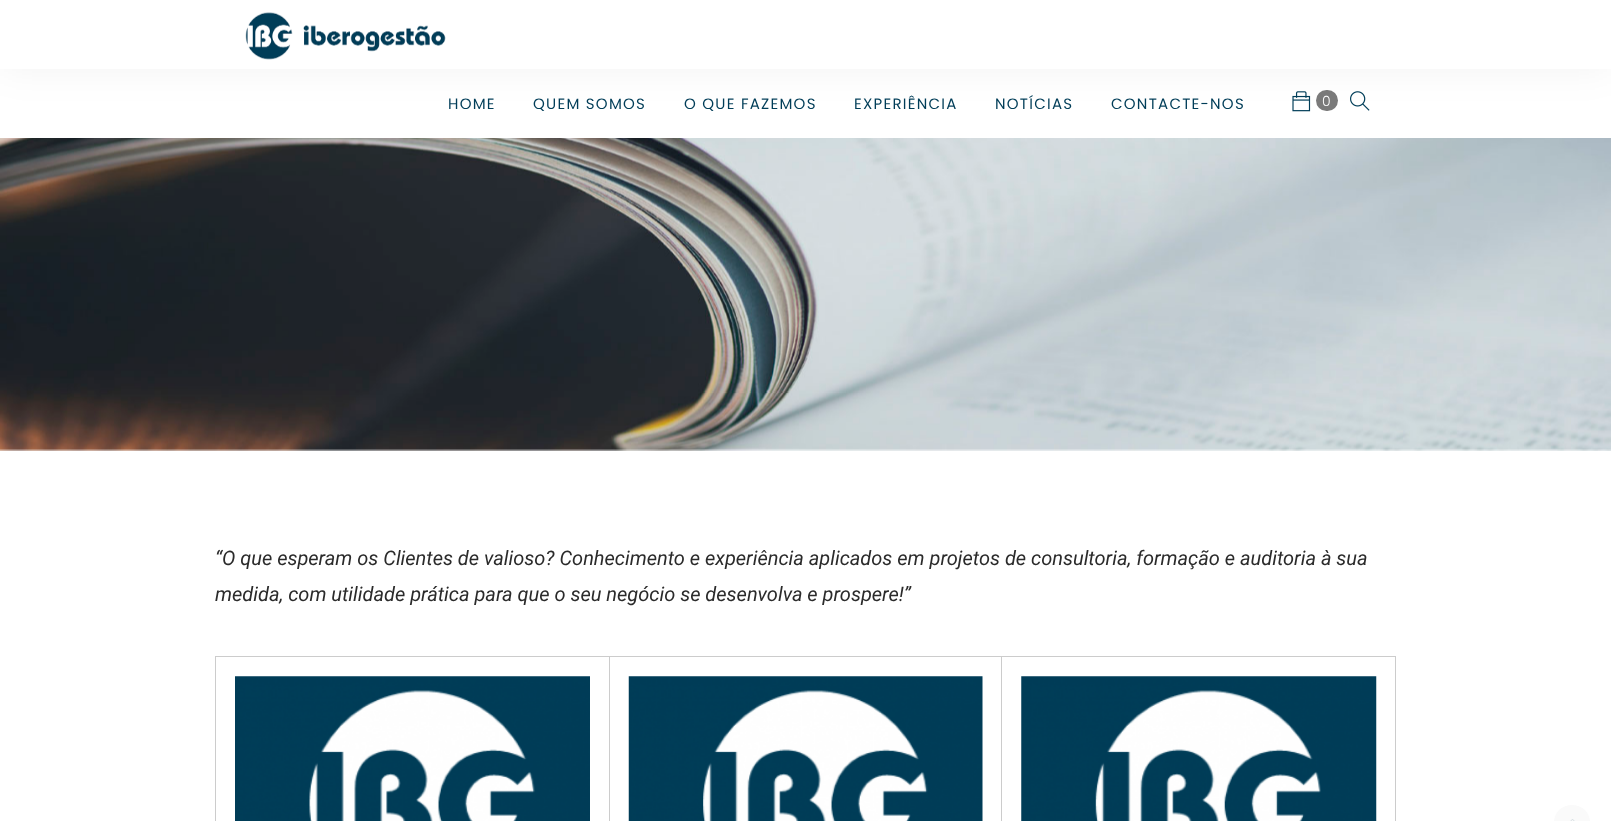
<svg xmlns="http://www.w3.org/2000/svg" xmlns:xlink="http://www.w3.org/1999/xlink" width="1611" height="821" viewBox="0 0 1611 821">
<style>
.cls-1{font:15px Poppins;letter-spacing:1.25px;fill:#003d58}
.cls-2{font:300 14px Poppins;fill:#ffffff}
.cls-3{font:italic 20px Roboto;fill:#2b2b2b}
</style>
<rect width="100%" height="100%" fill="#ffffff"/>
<rect fill="#000000" fill-opacity="0.05" filter="blur(19px)" x="0" y="0" width="1611" height="69"/>
<rect fill="#ffffff" x="0" y="0" width="1611" height="69"/>
<image xlink:href="image0.png" x="245" y="12" width="201" height="48"/>
<image xlink:href="image1.png" x="1292" y="91" width="19" height="21"/>
<rect fill="#7a7a7a" x="1316" y="90" width="22" height="21" rx="10.5"/>
<image xlink:href="image2.png" x="1350" y="91" width="20" height="20"/>
<image xlink:href="image3.png" x="0" y="138" width="1611" height="313"/>
<rect fill="#cccccc" x="215" y="656" width="1181" height="1"/>
<rect fill="#cccccc" x="1395" y="656" width="1" height="165"/>
<rect fill="#cccccc" x="215" y="656" width="1" height="165"/>
<image xlink:href="image4.png" x="235" y="676" width="355" height="145"/>
<rect fill="#cccccc" x="609" y="656" width="1" height="165"/>
<image xlink:href="image5.png" x="628" y="676" width="355" height="145"/>
<rect fill="#cccccc" x="1001" y="656" width="1" height="165"/>
<image xlink:href="image6.png" x="1021" y="676" width="356" height="145"/>
<rect fill="#fafafa" x="1554" y="805" width="36" height="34" rx="18"/>
<image xlink:href="image7.png" x="1570" y="819" width="5" height="2"/>
<text class="cls-1" x="448" y="109">HOME</text>
<text class="cls-1" x="533" y="109">QUEM SOMOS</text>
<text class="cls-1" x="684" y="109">O QUE FAZEMOS</text>
<text class="cls-1" x="854" y="109">EXPERIÊNCIA</text>
<text class="cls-1" x="995" y="109">NOTÍCIAS</text>
<text class="cls-1" x="1111" y="109">CONTACTE-NOS</text>
<text class="cls-2" x="1322" y="106">0</text>
<text class="cls-3"><tspan x="215" y="565">“O que esperam os Clientes de valioso? Conhecimento e experiência aplicados em projetos de consultoria, formação e auditoria à sua</tspan><tspan x="215" y="601">medida, com utilidade prática para que o seu negócio se desenvolva e prospere!”</tspan></text>
</svg>
